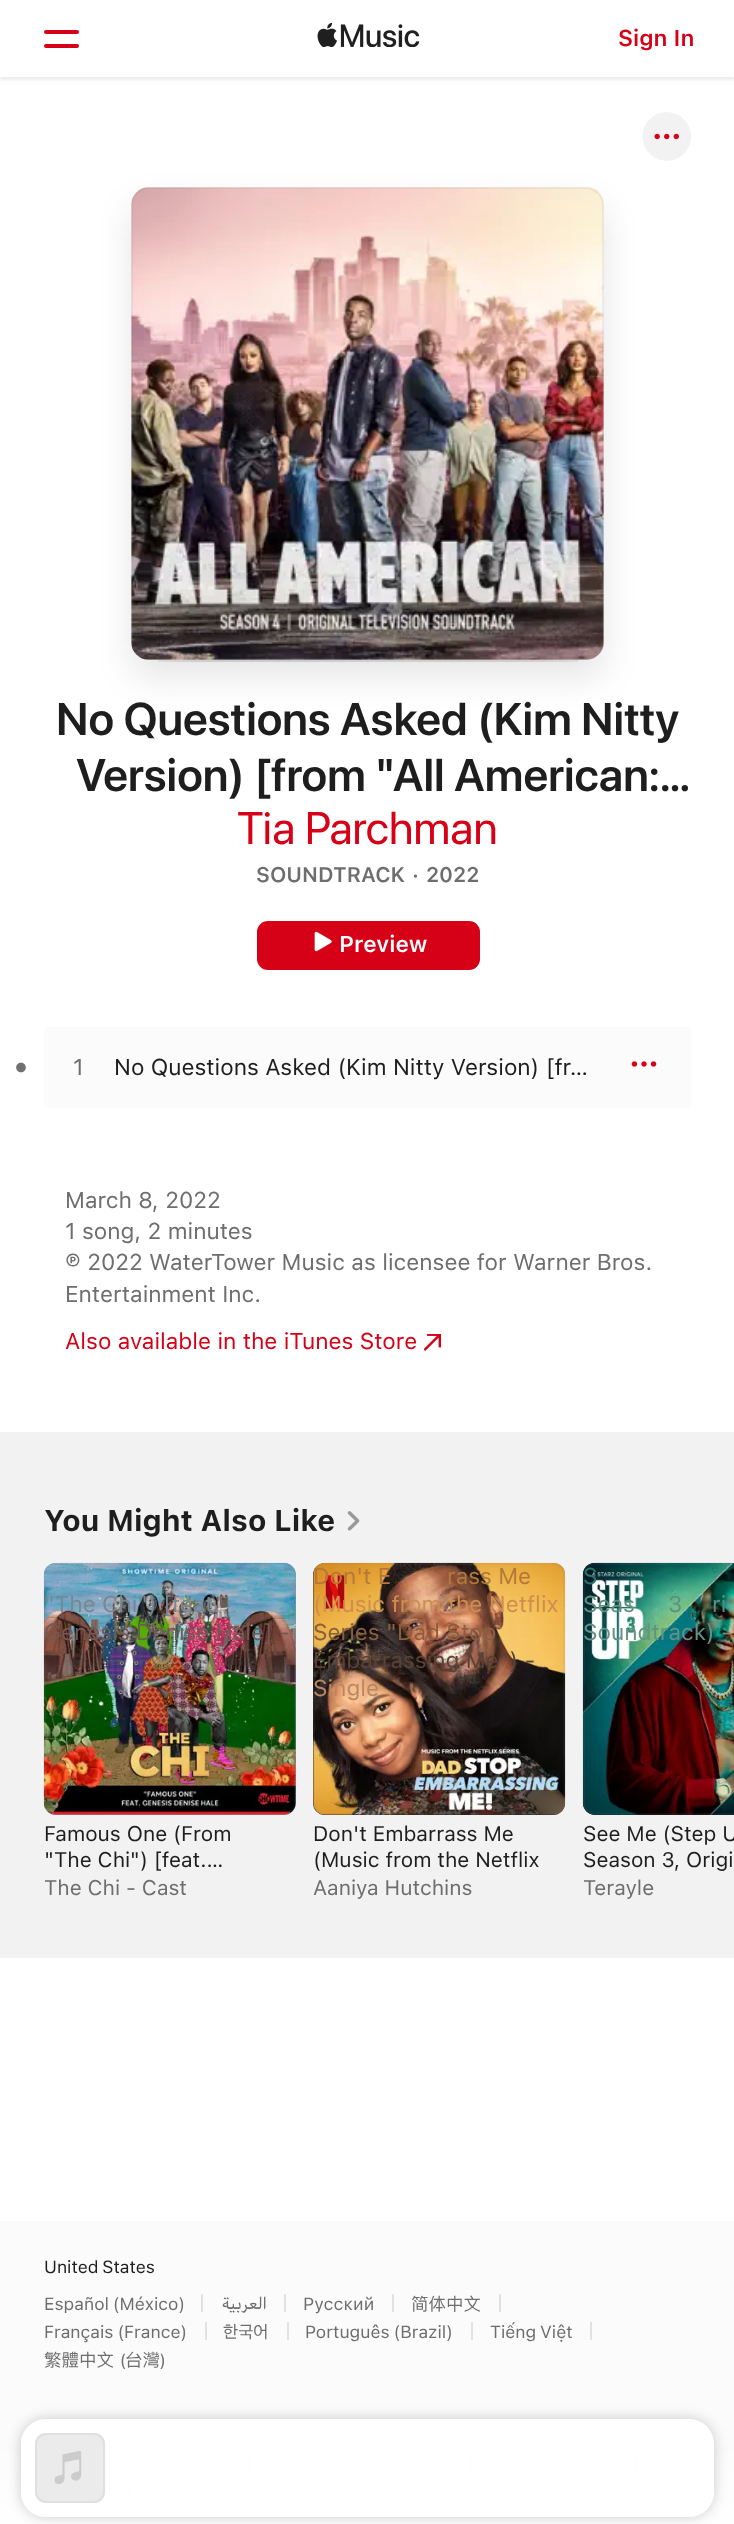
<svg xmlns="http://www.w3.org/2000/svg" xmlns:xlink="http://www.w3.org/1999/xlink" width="734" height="2524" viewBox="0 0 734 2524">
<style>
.cls-1{font:600 22.75px SF;fill:#d60017}
.cls-2{font:600 45.5px 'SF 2';fill:#1e1e1e}
.cls-3{font:45.5px 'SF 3';fill:#d60017}
.cls-4{font:600 21px SF;fill:#6e6e6e}
.cls-5{font:600 22.75px SF;fill:#ffffff}
.cls-6{font:22.75px SF;fill:#6e6e6e}
.cls-7{font:22.75px SF;fill:#1e1e1e}
.cls-8{font:22.75px SF;fill:#d60017}
.cls-9{font:bold 29.75px SF;fill:#1e1e1e}
.cls-10{font:22.75px SF;fill:#768893}
.cls-11{font:22.75px SF;fill:#725954}
.cls-12{font:21px SF;fill:#1e1e1e}
.cls-13{font:21px SF;fill:#6e6e6e}
.cls-14{font:22.75px SF;fill:#b4783b}
.cls-15{font:22.75px SF;fill:#cd8e4e}
.cls-16{font:22.75px SF;fill:#8b5f3e}
.cls-17{font:22.75px SF;fill:#594236}
.cls-18{font:22.75px SF;fill:#b78865}
.cls-19{font:22.75px SF;fill:#2e746a}
.cls-20{font:22.75px SF;fill:#5c8f7f}
.cls-21{font:22.75px SF;fill:#659186}
.cls-22{font:17.5px SF;fill:#1e1e1e}
.cls-23{font:17.5px SF;fill:#6e6e6e}
.cls-24{font:17.5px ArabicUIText;direction:rtl;fill:#6e6e6e}
.cls-25{font:17.5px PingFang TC;fill:#6e6e6e}
.cls-26{font:17.5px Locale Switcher;fill:#6e6e6e}
.cls-27{font:17.5px 'SF 2';fill:#6e6e6e}
</style>
<defs>
<clipPath id="clip1"><rect x="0" y="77" width="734" height="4"/></clipPath>
<linearGradient id="g1" gradientUnits="userSpaceOnUse" x1="368" y1="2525" x2="368" y2="2419"><stop offset="0" stop-color="#ffffff" stop-opacity="0.8"/><stop offset="1" stop-color="#ffffff" stop-opacity="0"/></linearGradient>
<clipPath id="clip2"><path d="M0 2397H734V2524H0ZM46 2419H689C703 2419 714 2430 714 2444V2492C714 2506 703 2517 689 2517H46C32 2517 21 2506 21 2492V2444C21 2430 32 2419 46 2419Z" clip-rule="evenodd"/></clipPath>
</defs>
<rect width="100%" height="100%" fill="#ffffff"/>
<g clip-path="url(#clip1)">
<rect fill="#000000" fill-opacity="0.1" filter="blur(2px)" x="0" y="2" width="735" height="77"/>
</g>
<rect fill="#d60017" x="44" y="30" width="35" height="4" rx="2"/>
<rect fill="#d60017" x="44" y="44" width="35" height="4" rx="2"/>
<image xlink:href="image0.png" x="317" y="23" width="103" height="24"/>
<image xlink:href="image1.png" x="642" y="112" width="49" height="49"/>
<rect fill="#000000" fill-opacity="0.1" filter="blur(17.5px)" x="131" y="205" width="473" height="472" rx="18"/>
<image xlink:href="image3.png" x="158" y="659" width="420" height="3"/>
<rect fill="none" stroke="#808080" stroke-opacity="0.04" stroke-width="2" x="160" y="244" width="415" height="415"/>
<image xlink:href="image2.png" x="131" y="187" width="473" height="473"/>
<rect fill="none" stroke="#808080" stroke-opacity="0.1" stroke-width="2" x="132" y="188" width="471" height="471" rx="17"/>
<rect fill="#d60017" x="257" y="921" width="223" height="49" rx="11"/>
<image xlink:href="image4.png" x="314" y="931" width="18" height="21"/>
<rect fill="#fbfbfb" x="44" y="1027" width="647" height="81"/>
<image xlink:href="image5.png" x="16" y="1062" width="10" height="11"/>
<image xlink:href="image6.png" x="631" y="1061" width="26" height="6"/>
<image xlink:href="image7.png" x="424" y="1334" width="17" height="17"/>
<rect fill="#f2f2f2" x="0" y="1432" width="734" height="526"/>
<image xlink:href="image8.png" x="347" y="1511" width="13" height="20"/>
<rect fill="#75a4c5" x="44" y="1563" width="252" height="252" rx="12"/>
<image xlink:href="image9.png" x="43" y="1562" width="253" height="253"/>
<rect fill="none" stroke="#808080" stroke-opacity="0.1" stroke-width="2" x="45" y="1564" width="250" height="250" rx="11"/>
<rect fill="#241b1c" x="313" y="1563" width="252" height="252" rx="12"/>
<image xlink:href="image10.png" x="313" y="1562" width="253" height="253"/>
<rect fill="none" stroke="#808080" stroke-opacity="0.1" stroke-width="2" x="314" y="1564" width="250" height="250" rx="11"/>
<path fill="#002128" d="M595 1563H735V1815H595C588.5 1815 583 1809.5 583 1803V1575C583 1568.5 588.5 1563 595 1563Z"/>
<image xlink:href="image11.png" x="582" y="1562" width="152" height="253"/>
<rect fill="none" stroke="#808080" stroke-opacity="0.1" stroke-width="2" x="584" y="1564" width="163" height="250" rx="11"/>
<rect fill="#fbfbfb" x="0" y="2221" width="734" height="303"/>
<rect fill="#e2e2e2" x="201" y="2294" width="2" height="18"/>
<rect fill="#e2e2e2" x="284" y="2294" width="2" height="18"/>
<rect fill="#e2e2e2" x="392" y="2294" width="2" height="18"/>
<rect fill="#e2e2e2" x="499" y="2294" width="2" height="18"/>
<rect fill="#e2e2e2" x="205" y="2322" width="2" height="18"/>
<rect fill="#e2e2e2" x="287" y="2322" width="2" height="18"/>
<rect fill="#e2e2e2" x="471" y="2322" width="2" height="18"/>
<rect fill="#e2e2e2" x="590" y="2322" width="2" height="18"/>
<rect fill="#e2e2e2" x="249" y="2454" width="2" height="17"/>
<rect fill="#e2e2e2" x="469" y="2454" width="2" height="17"/>
<rect fill="#e2e2e2" x="635" y="2454" width="2" height="17"/>
<rect fill="#e2e2e2" x="128" y="2482" width="2" height="17"/>
<rect fill="url(#g1)" x="0" y="2454" width="734" height="70"/>
<g clip-path="url(#clip2)">
<rect fill="#000000" fill-opacity="0.2" filter="blur(7px)" x="21" y="2419" width="693" height="98" rx="25"/>
</g>
<rect fill="#ffffff" fill-opacity="0.9" x="21" y="2419" width="693" height="98" rx="25"/>
<rect fill="#ebebeb" x="35" y="2433" width="70" height="70" rx="11"/>
<image xlink:href="image12.png" x="54" y="2451" width="28" height="33"/>
<rect fill="none" stroke="#e0e0e0" stroke-width="2" x="36" y="2434" width="68" height="68" rx="10"/>
<text class="cls-1" x="618" y="46">Sign In</text>
<text class="cls-2" x="56" y="735">No Questions Asked (Kim Nitty</text>
<text class="cls-2" x="76" y="791">Version) [from "All American:…</text>
<text class="cls-3" x="237" y="844">Tia Parchman</text>
<text class="cls-4" x="256" y="882">SOUNDTRACK · 2022</text>
<text class="cls-5" x="339" y="952">Preview</text>
<text class="cls-6" x="73" y="1075">1</text>
<text class="cls-7" x="114" y="1075">No Questions Asked (Kim Nitty Version) [fr…</text>
<text class="cls-6"><tspan x="65" y="1208">March 8, 2022</tspan><tspan x="65" y="1239">1 song, 2 minutes</tspan><tspan x="65" y="1270">℗ 2022 WaterTower Music as licensee for Warner Bros.</tspan><tspan x="65" y="1302">Entertainment Inc.</tspan></text>
<text class="cls-8" x="65" y="1349">Also available in the iTunes Store</text>
<text class="cls-9" x="44" y="1531">You Might Also Like</text>
<text class="cls-10" x="44" y="1612">"The Chi") [feat.</text>
<text class="cls-11" x="44" y="1640">Genesis Denise Hale] -</text>
<text class="cls-12"><tspan x="44" y="1841">Famous One (From</tspan><tspan x="44" y="1867">"The Chi") [feat.…</tspan></text>
<text class="cls-13" x="44" y="1895">The Chi - Cast</text>
<text class="cls-14" x="313" y="1584">Don't E</text>
<text class="cls-14" x="447" y="1584">rass Me</text>
<text class="cls-15" x="313" y="1612">(Music from the Netflix</text>
<text class="cls-16" x="313" y="1640">Series "Dad Stop</text>
<text class="cls-17" x="313" y="1668">Embarrassing Me") -</text>
<text class="cls-18" x="313" y="1696">Single</text>
<text class="cls-12"><tspan x="313" y="1841">Don't Embarrass Me</tspan><tspan x="313" y="1867">(Music from the Netflix</tspan></text>
<text class="cls-13" x="313" y="1895">Aaniya Hutchins</text>
<text class="cls-19" x="583" y="1584">S</text>
<text class="cls-20" x="583" y="1612">Seas</text>
<text class="cls-20" x="668" y="1612">3</text>
<text class="cls-20" x="712" y="1612">ri</text>
<text class="cls-21" x="583" y="1640">Soundtrack) -</text>
<text class="cls-12"><tspan x="583" y="1841">See Me (Step U</tspan><tspan x="583" y="1867">Season 3, Origi</tspan></text>
<text class="cls-13" x="583" y="1895">Terayle</text>
<text class="cls-22" x="44" y="2273" word-spacing="-1">United States</text>
<text class="cls-23" x="44" y="2310" word-spacing="-1">Español (México)</text>
<text class="cls-24" x="267" y="2310">العربية</text>
<text class="cls-23" x="303" y="2310">Русский</text>
<text class="cls-25" x="411" y="2310">简体中文</text>
<text class="cls-23" x="44" y="2338" word-spacing="-1">Français (France)</text>
<text class="cls-26" x="223" y="2338">한국어</text>
<text class="cls-23" x="305" y="2338" word-spacing="-1">Português (Brazil)</text>
<text class="cls-23" x="490" y="2338" word-spacing="-1">Tiếng Việt</text>
<text class="cls-25" x="44" y="2366">繁體中文</text>
<text class="cls-27" x="120" y="2366">(</text>
<text class="cls-25" x="125" y="2366">台灣</text>
<text class="cls-27" x="160" y="2366">)</text>
</svg>
